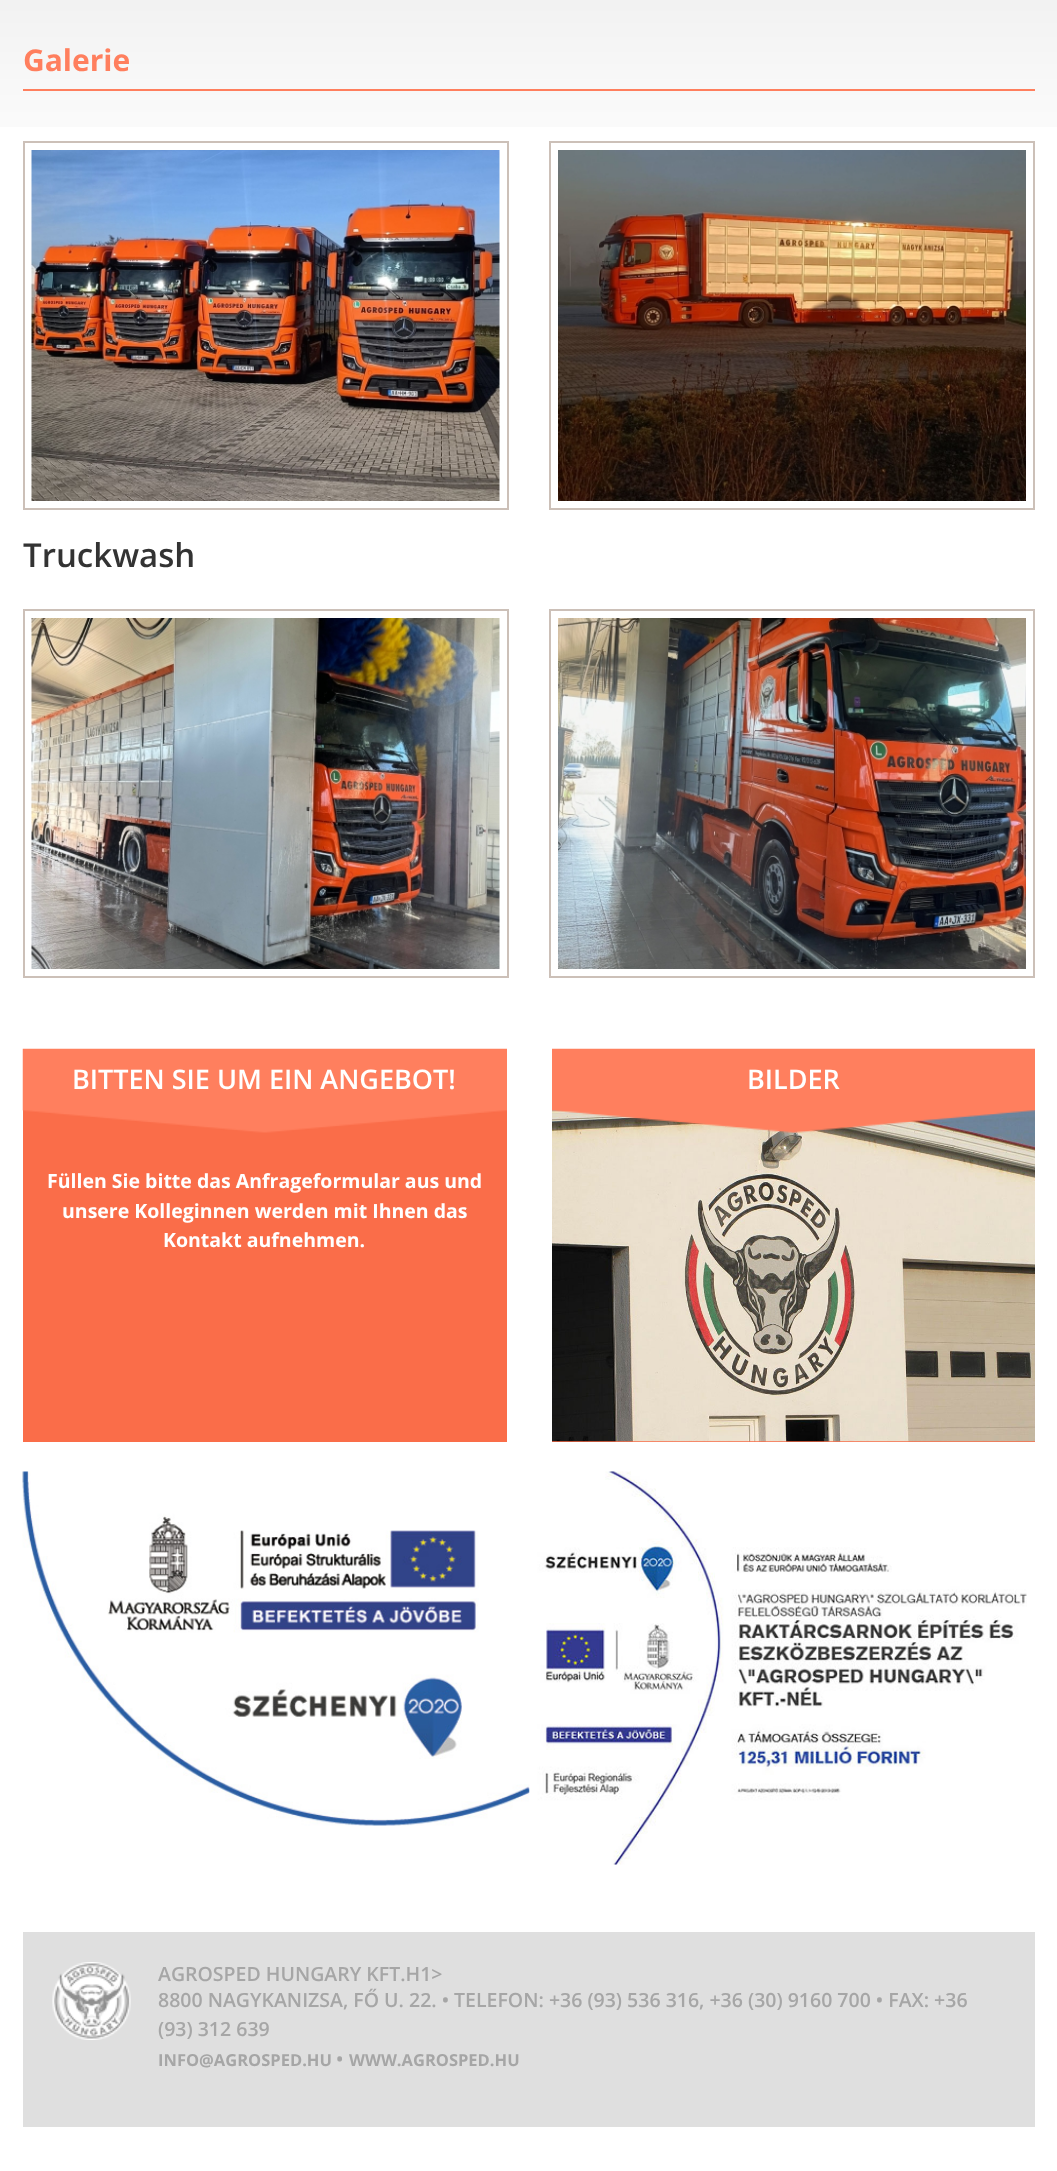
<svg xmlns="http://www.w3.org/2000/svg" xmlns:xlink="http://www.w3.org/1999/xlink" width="1057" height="2171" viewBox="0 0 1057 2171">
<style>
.cls-1{font:bold 30px Open Sans;fill:#ff7f5e}
.cls-2{font:600 33px Open Sans;fill:#333333}
.cls-3{font:600 27px Open Sans;fill:#ffffff}
.cls-4{font:bold 19.5px Open Sans;fill:#ffffff}
.cls-5{font:600 19.5px Open Sans;fill:#a6a6a6}
.cls-6{font:bold 16.5px Open Sans;fill:#a6a6a6}
</style>
<rect width="100%" height="100%" fill="#ffffff"/>
<image xlink:href="image0.png" x="0" y="0" width="1057" height="127"/>
<rect fill="#ff7f5e" x="23" y="89" width="1012" height="2"/>
<rect fill="none" stroke="#ccc0b8" stroke-width="2" x="24" y="142" width="484" height="367"/>
<image xlink:href="image1.png" x="31" y="150" width="469" height="351"/>
<rect fill="none" stroke="#ccc0b8" stroke-width="2" x="550" y="142" width="484" height="367"/>
<image xlink:href="image2.png" x="558" y="150" width="468" height="351"/>
<rect fill="none" stroke="#ccc0b8" stroke-width="2" x="24" y="610" width="484" height="367"/>
<image xlink:href="image3.png" x="31" y="618" width="469" height="351"/>
<rect fill="none" stroke="#ccc0b8" stroke-width="2" x="550" y="610" width="484" height="367"/>
<image xlink:href="image4.png" x="558" y="618" width="468" height="351"/>
<rect fill="#fa6d49" x="23" y="1110" width="484" height="332"/>
<image xlink:href="image5.png" x="22" y="1048" width="485" height="85"/>
<rect fill="#fa6d49" x="552" y="1441" width="483" height="1"/>
<image xlink:href="image7.png" x="552" y="1110" width="483" height="332"/>
<image xlink:href="image6.png" x="552" y="1048" width="483" height="85"/>
<image xlink:href="image8.png" x="22" y="1471" width="508" height="355"/>
<image xlink:href="image9.png" x="529" y="1471" width="498" height="394"/>
<rect fill="#dfdfdf" x="23" y="1932" width="1012" height="195"/>
<image xlink:href="image10.png" x="52" y="1962" width="79" height="78"/>
<text class="cls-1" x="23" y="71">Galerie</text>
<text class="cls-2" x="23" y="567">Truckwash</text>
<text class="cls-3" x="72" y="1089">BITTEN SIE UM EIN ANGEBOT!</text>
<text class="cls-4" x="47" y="1188">Füllen Sie bitte das Anfrageformular aus und</text>
<text class="cls-4" x="62" y="1218">unsere Kolleginnen werden mit Ihnen das</text>
<text class="cls-4" x="163" y="1247">Kontakt aufnehmen.</text>
<text class="cls-3" x="747" y="1089">BILDER</text>
<text class="cls-5"><tspan x="158" y="1981">AGROSPED HUNGARY KFT.H1&gt;</tspan><tspan x="158" y="2007">8800 NAGYKANIZSA, FŐ U. 22. • TELEFON: +36 (93) 536 316, +36 (30) 9160 700 • FAX: +36</tspan><tspan x="158" y="2036">(93) 312 639</tspan></text>
<text class="cls-6" x="158" y="2066">INFO@AGROSPED.HU</text>
<text class="cls-5" x="336" y="2066">•</text>
<text class="cls-6" x="349" y="2066">WWW.AGROSPED.HU</text>
</svg>
